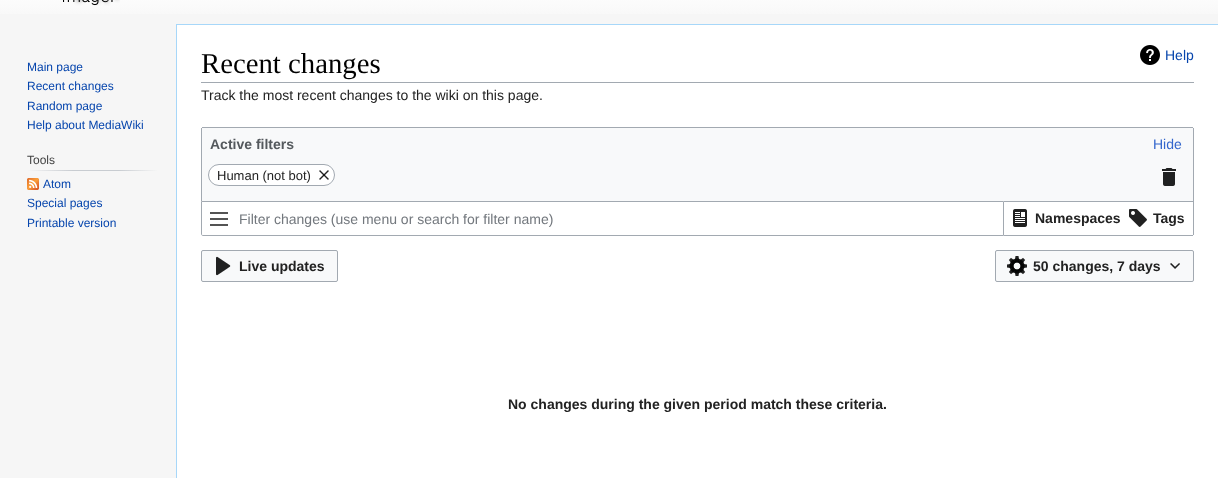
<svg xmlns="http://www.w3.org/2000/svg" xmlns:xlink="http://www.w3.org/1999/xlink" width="1218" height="478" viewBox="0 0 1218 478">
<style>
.cls-1{font:12px Liberation Sans;fill:#0645ad}
.cls-2{font:12px Liberation Sans;fill:#444444}
.cls-3{font:28.75px Liberation Serif;fill:#000000}
.cls-4{font:14px Liberation Sans;fill:#0645ad}
.cls-5{font:14px Liberation Sans;fill:#222222}
.cls-6{font:bold 14px Liberation Sans;fill:#54595d}
.cls-7{font:14px Liberation Sans;fill:#3366cc}
.cls-8{font:13px Liberation Sans;fill:#222222}
.cls-9{font:14px Liberation Sans;fill:#72777d}
.cls-10{font:bold 14px Liberation Sans;fill:#222222}
</style>
<defs>
<linearGradient id="g1" gradientUnits="userSpaceOnUse" x1="609" y1="-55" x2="609" y2="25"><stop offset="0.5" stop-color="#ffffff"/><stop offset="1" stop-color="#f6f6f6"/></linearGradient>
<linearGradient id="g2" gradientUnits="userSpaceOnUse" x1="27" y1="171" x2="158" y2="171"><stop offset="0" stop-color="#f6f6f6"/><stop offset="0.35" stop-color="#c8ccd1"/><stop offset="0.7" stop-color="#c8ccd1"/><stop offset="1" stop-color="#f6f6f6"/></linearGradient>
</defs>
<rect width="100%" height="100%" fill="#f6f6f6"/>
<rect fill="url(#g1)" x="0" y="0" width="1218" height="14"/>
<image xlink:href="image0.png" x="63" y="0" width="57" height="6"/>
<rect fill="url(#g2)" x="27" y="170" width="131" height="1"/>
<image xlink:href="image1.png" x="27" y="178" width="12" height="12"/>
<rect fill="#ffffff" x="177" y="25" width="1041" height="453"/>
<rect fill="#a7d7f9" x="176" y="24" width="1042" height="1"/>
<rect fill="#a7d7f9" x="176" y="24" width="1" height="454"/>
<rect fill="#a2a9b1" x="201" y="82" width="993" height="1"/>
<image xlink:href="image2.png" x="1140" y="45" width="20" height="20"/>
<path fill="#f8f9fa" d="M203 127H1192C1193 127 1194 128 1194 129V201H201V129C201 128 202 127 203 127Z"/>
<rect fill="#a2a9b1" x="202" y="127" width="991" height="1"/>
<rect fill="#a2a9b1" x="1193" y="128" width="1" height="73"/>
<rect fill="#a2a9b1" x="201" y="128" width="1" height="73"/>
<rect fill="#ffffff" stroke="#a2a9b1" x="208.5" y="164.5" width="126" height="21" rx="10.5"/>
<image xlink:href="image3.png" x="319" y="170" width="10" height="10"/>
<image xlink:href="image4.png" x="1162" y="168" width="14" height="18"/>
<path fill="none" stroke="#a2a9b1" d="M201.5 201.5H1003.5V235.5H203C202 235.5 201.5 235 201.5 234Z"/>
<image xlink:href="image5.png" x="210" y="212" width="18" height="14"/>
<rect fill="#a2a9b1" x="1004" y="201" width="190" height="1"/>
<rect fill="#a2a9b1" x="1193" y="201" width="1" height="34"/>
<rect fill="#a2a9b1" x="1004" y="235" width="189" height="1"/>
<image xlink:href="image6.png" x="1013" y="209" width="14" height="18"/>
<image xlink:href="image7.png" x="1129" y="209" width="18" height="18"/>
<rect fill="#f8f9fa" stroke="#a2a9b1" x="201.5" y="250.5" width="136" height="31" rx="1.5"/>
<image xlink:href="image8.png" x="216" y="256" width="15" height="20"/>
<rect fill="#f8f9fa" stroke="#a2a9b1" x="995.5" y="250.5" width="198" height="31" rx="1.5"/>
<image xlink:href="image9.png" x="1007" y="256" width="20" height="20"/>
<image xlink:href="image10.png" x="1170" y="263" width="10" height="6"/>
<text class="cls-1"><tspan x="27" y="71">Main page</tspan><tspan x="27" y="90">Recent changes</tspan><tspan x="27" y="110">Random page</tspan><tspan x="27" y="129">Help about MediaWiki</tspan></text>
<text class="cls-2" x="27" y="164">Tools</text>
<text class="cls-1" x="43" y="188">Atom</text>
<text class="cls-1"><tspan x="27" y="207">Special pages</tspan><tspan x="27" y="227">Printable version</tspan></text>
<text class="cls-3" x="201" y="73">Recent changes</text>
<text class="cls-4" x="1165" y="60">Help</text>
<text class="cls-5" x="201" y="100">Track the most recent changes to the wiki on this page.</text>
<text class="cls-6" x="210" y="149">Active filters</text>
<text class="cls-7" x="1153" y="149">Hide</text>
<text class="cls-8" x="217" y="180">Human (not bot)</text>
<text class="cls-9" x="239" y="224">Filter changes (use menu or search for filter name)</text>
<text class="cls-10" x="1035" y="223">Namespaces</text>
<text class="cls-10" x="1153" y="223">Tags</text>
<text class="cls-10" x="239" y="271">Live updates</text>
<text class="cls-10" x="1033" y="271">50 changes, 7 days</text>
<text class="cls-10" x="508" y="409">No changes during the given period match these criteria.</text>
</svg>
